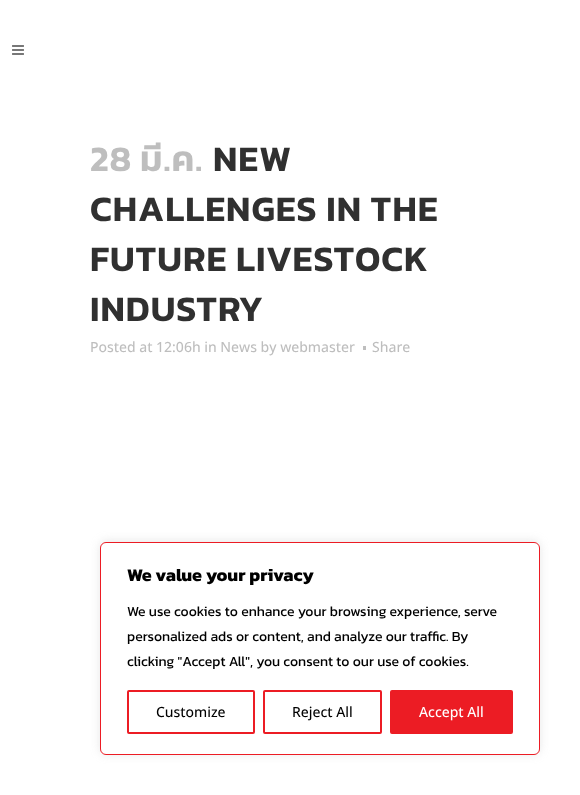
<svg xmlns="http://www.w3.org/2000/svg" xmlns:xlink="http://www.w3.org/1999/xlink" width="580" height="795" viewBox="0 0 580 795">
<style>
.cls-1{font:600 36px Kanit;letter-spacing:1px;fill:#bebebe}
.cls-2{font:600 36px Kanit;letter-spacing:1px;fill:#303030}
.cls-3{font:500 14px Open Sans;fill:#bebebe}
.cls-4{font:bold 18px Kanit;fill:#000000}
.cls-5{font:14px Kanit;fill:#000000}
.cls-6{font:500 14px Open Sans;fill:#000000}
.cls-7{font:500 14px Open Sans;fill:#ffffff}
</style>
<rect width="100%" height="100%" fill="#ffffff"/>
<image xlink:href="image0.png" x="12" y="45" width="12" height="10"/>
<rect fill="#bebebe" x="363" y="346" width="3" height="4"/>
<rect fill="#acabab" fill-opacity="0.3" filter="blur(5px)" x="100" y="541" width="440" height="213" rx="6"/>
<rect fill="#ffffff" stroke="#ec1c24" x="100.5" y="542.5" width="439" height="212" rx="5.5"/>
<rect fill="none" stroke="#ec1c24" stroke-width="2" x="128" y="691" width="126" height="42" rx="1"/>
<rect fill="none" stroke="#ec1c24" stroke-width="2" x="264" y="691" width="117" height="42" rx="1"/>
<rect fill="#ec1c24" stroke="#ec1c24" stroke-width="2" x="391" y="691" width="121" height="42" rx="1"/>
<text class="cls-1" x="90" y="171" word-spacing="-1">28 มี.ค.</text>
<text class="cls-2" x="213" y="171">NEW</text>
<text class="cls-2"><tspan x="90" y="221">CHALLENGES IN THE</tspan><tspan x="90" y="271">FUTURE LIVESTOCK</tspan><tspan x="90" y="321">INDUSTRY</tspan></text>
<text class="cls-3" x="90" y="352">Posted at 12:06h in News by webmaster</text>
<text class="cls-3" x="372" y="352">Share</text>
<text class="cls-4" x="127" y="581">We value your privacy</text>
<text class="cls-5"><tspan x="127" y="616">We use cookies to enhance your browsing experience, serve</tspan><tspan x="127" y="641">personalized ads or content, and analyze our traffic. By</tspan><tspan x="127" y="666">clicking "Accept All", you consent to our use of cookies.</tspan></text>
<text class="cls-6" x="156" y="717">Customize</text>
<text class="cls-6" x="292" y="717">Reject All</text>
<text class="cls-7" x="419" y="717">Accept All</text>
</svg>
